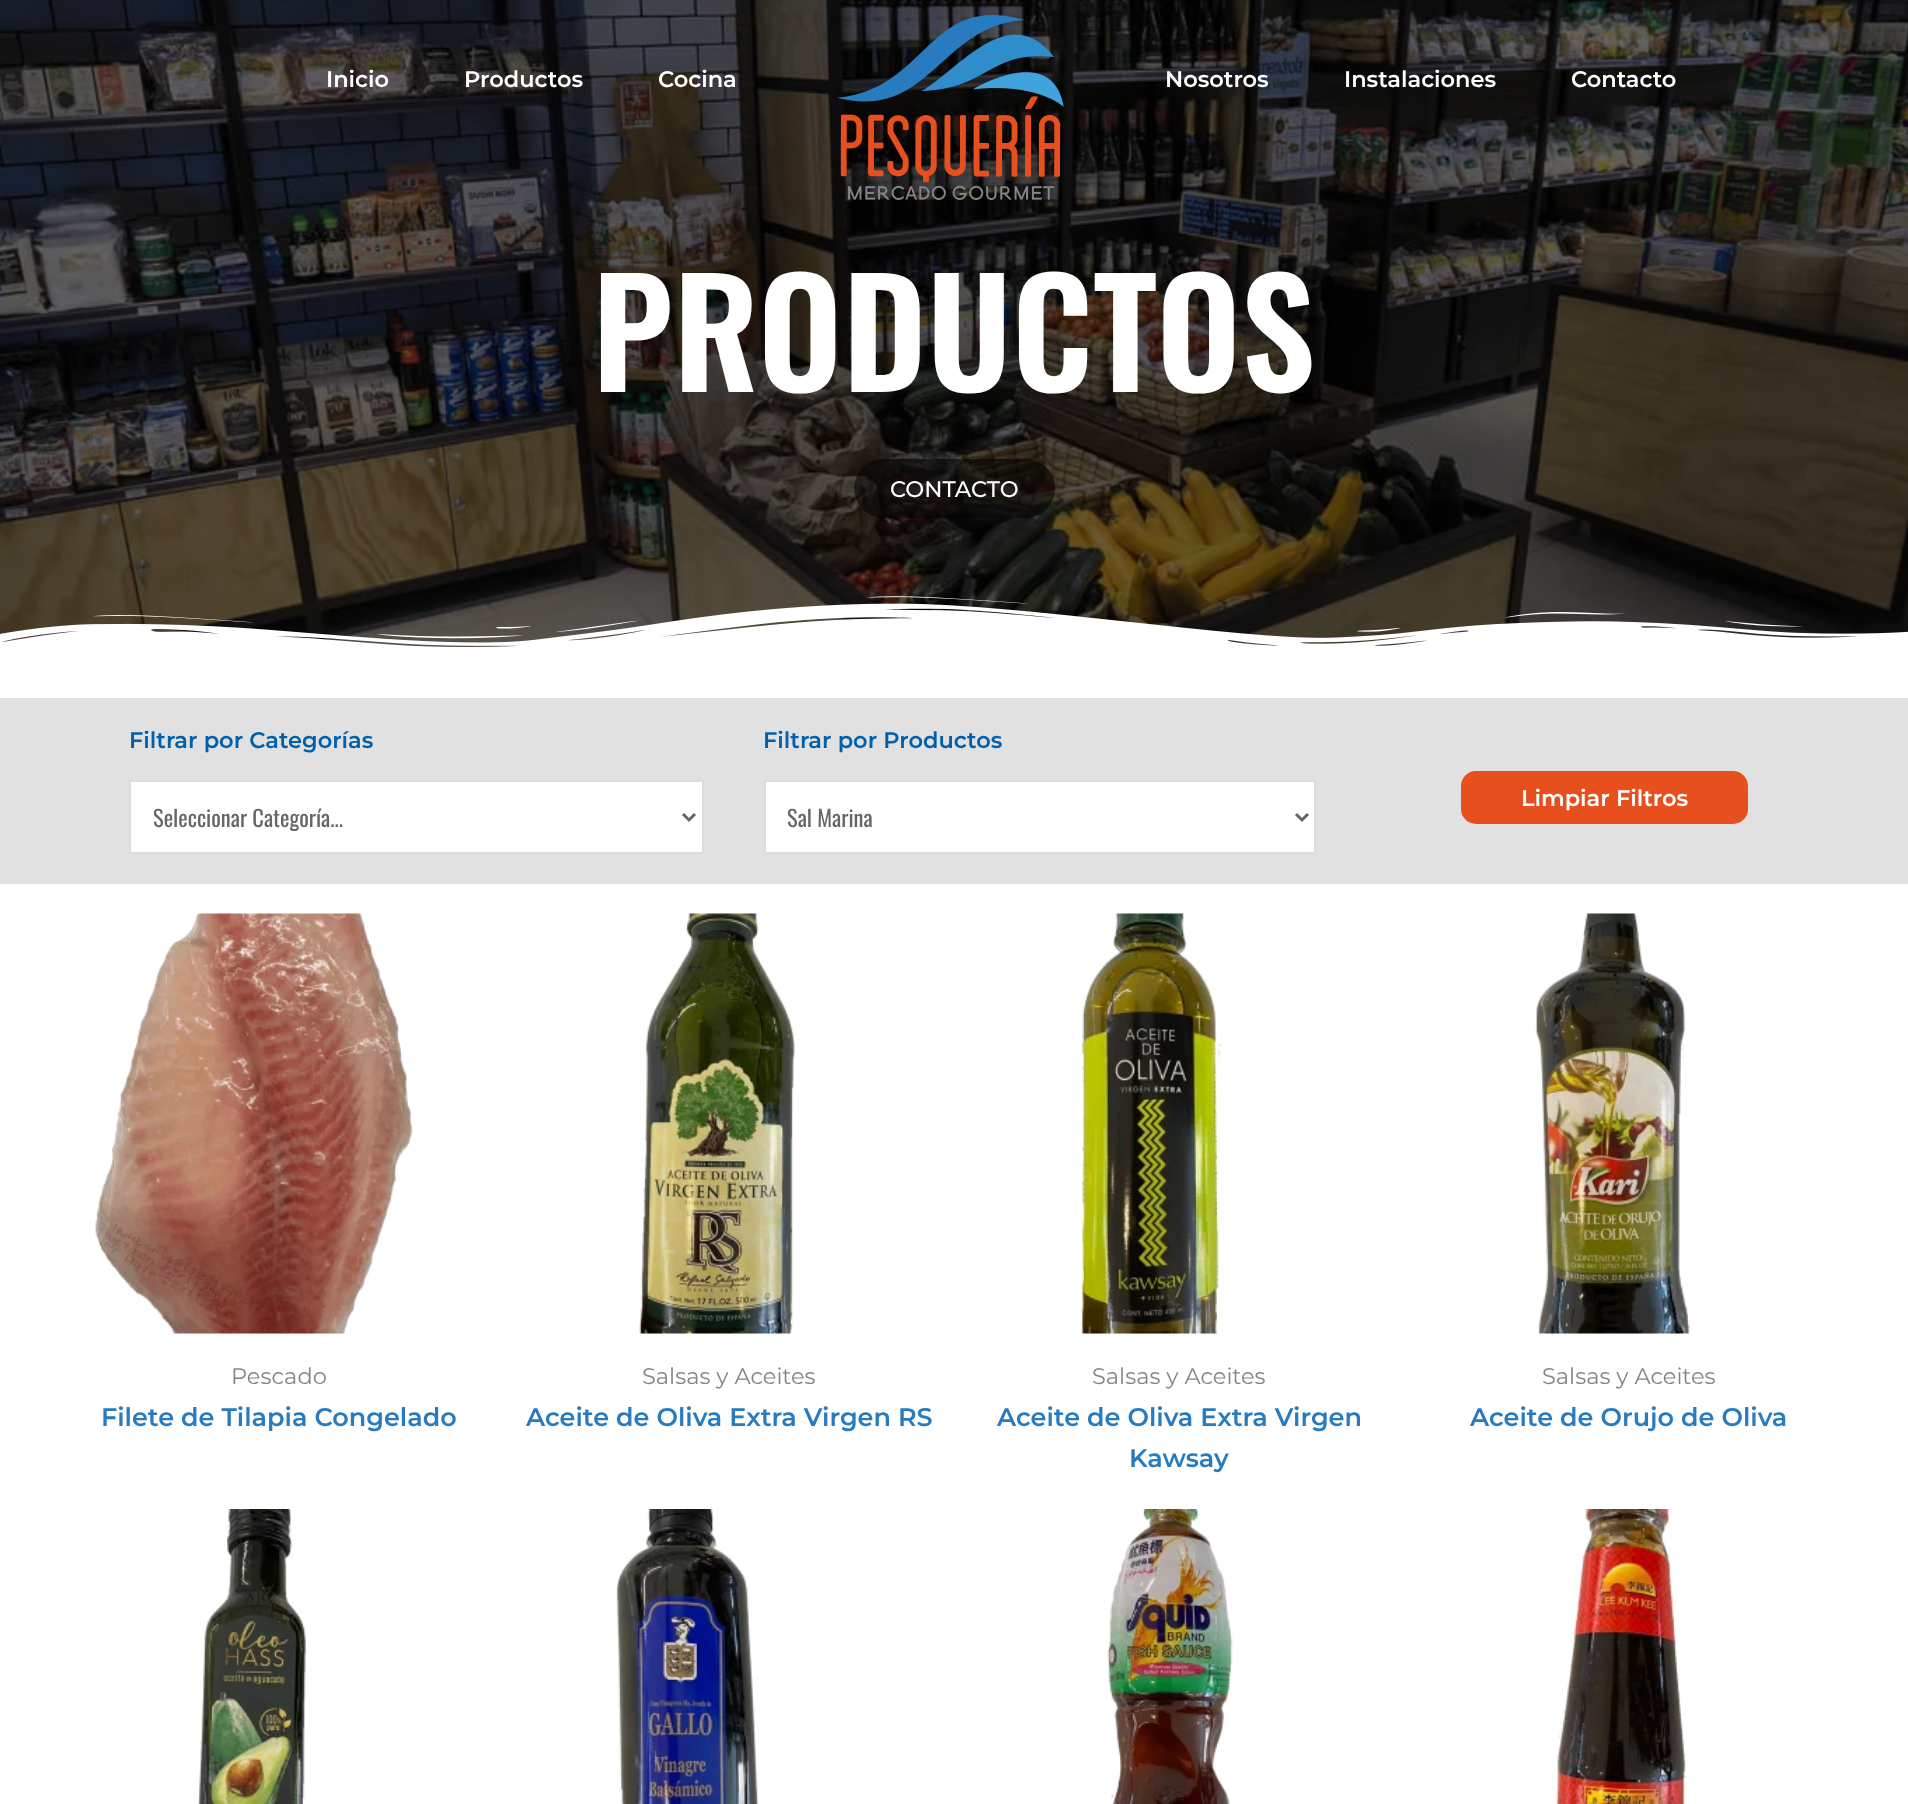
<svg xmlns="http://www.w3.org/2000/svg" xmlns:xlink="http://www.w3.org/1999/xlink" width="1908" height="1804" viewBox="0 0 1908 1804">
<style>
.cls-1{font:600 22.5px Montserrat;fill:#ffffff}
.cls-2{font:600 147px Oswald;fill:#ffffff}
.cls-3{font:500 22.5px Montserrat;fill:#ffffff}
.cls-4{font:600 22.5px Montserrat;fill:#0060ad}
.cls-5{font:22.5px Oswald;fill:#666666}
.cls-6{font:22.5px Montserrat;fill:#848585}
.cls-7{font:600 25.5px Montserrat;fill:#277bbe}
</style>
<rect width="100%" height="100%" fill="#ffffff"/>
<image xlink:href="image1.png" x="0" y="0" width="1908" height="647"/>
<image xlink:href="image0.png" x="837" y="15" width="227" height="185"/>
<rect fill="#020101" fill-opacity="0.56" x="854" y="459" width="201" height="59" rx="29.5"/>
<image xlink:href="image2.png" x="0" y="596" width="1908" height="57"/>
<rect fill="#e1e1e1" x="0" y="698" width="1908" height="186"/>
<rect fill="#ffffff" stroke="#dddddd" stroke-width="2" x="130" y="781" width="573" height="72"/>
<path fill="none" stroke="#666666" stroke-width="3" d="M683 814L689 820L695 814"/>
<rect fill="#ffffff" stroke="#dddddd" stroke-width="2" x="765" y="781" width="550" height="72"/>
<path fill="none" stroke="#666666" stroke-width="3" d="M1296 814L1302 820L1308 814"/>
<rect fill="#e7501e" x="1461" y="771" width="287" height="53" rx="15"/>
<image xlink:href="image3.png" x="95" y="913" width="318" height="421"/>
<image xlink:href="image4.png" x="639" y="913" width="156" height="421"/>
<image xlink:href="image5.png" x="1080" y="913" width="142" height="421"/>
<image xlink:href="image6.png" x="1535" y="913" width="155" height="421"/>
<image xlink:href="image7.png" x="197" y="1509" width="109" height="295"/>
<image xlink:href="image8.png" x="616" y="1509" width="143" height="295"/>
<image xlink:href="image9.png" x="1107" y="1509" width="126" height="295"/>
<image xlink:href="image10.png" x="1556" y="1509" width="130" height="295"/>
<text class="cls-1" x="326" y="87">Inicio</text>
<text class="cls-1" x="464" y="87">Productos</text>
<text class="cls-1" x="658" y="87">Cocina</text>
<text class="cls-1" x="1165" y="87">Nosotros</text>
<text class="cls-1" x="1344" y="87">Instalaciones</text>
<text class="cls-1" x="1571" y="87">Contacto</text>
<text class="cls-2" x="592" y="392">PRODUCTOS</text>
<text class="cls-3" x="890" y="497">CONTACTO</text>
<text class="cls-4" x="129" y="748">Filtrar por Categorías</text>
<text class="cls-5" x="153" y="827">Seleccionar Categoría...</text>
<text class="cls-4" x="763" y="748">Filtrar por Productos</text>
<text class="cls-5" x="787" y="827">Sal Marina</text>
<text class="cls-1" x="1521" y="806">Limpiar Filtros</text>
<text class="cls-6" x="231" y="1384">Pescado</text>
<text class="cls-7" x="101" y="1426">Filete de Tilapia Congelado</text>
<text class="cls-6" x="642" y="1384">Salsas y Aceites</text>
<text class="cls-7" x="526" y="1426">Aceite de Oliva Extra Virgen RS</text>
<text class="cls-6" x="1092" y="1384">Salsas y Aceites</text>
<text class="cls-7" x="997" y="1426">Aceite de Oliva Extra Virgen</text>
<text class="cls-7" x="1129" y="1467">Kawsay</text>
<text class="cls-6" x="1542" y="1384">Salsas y Aceites</text>
<text class="cls-7" x="1470" y="1426">Aceite de Orujo de Oliva</text>
</svg>
